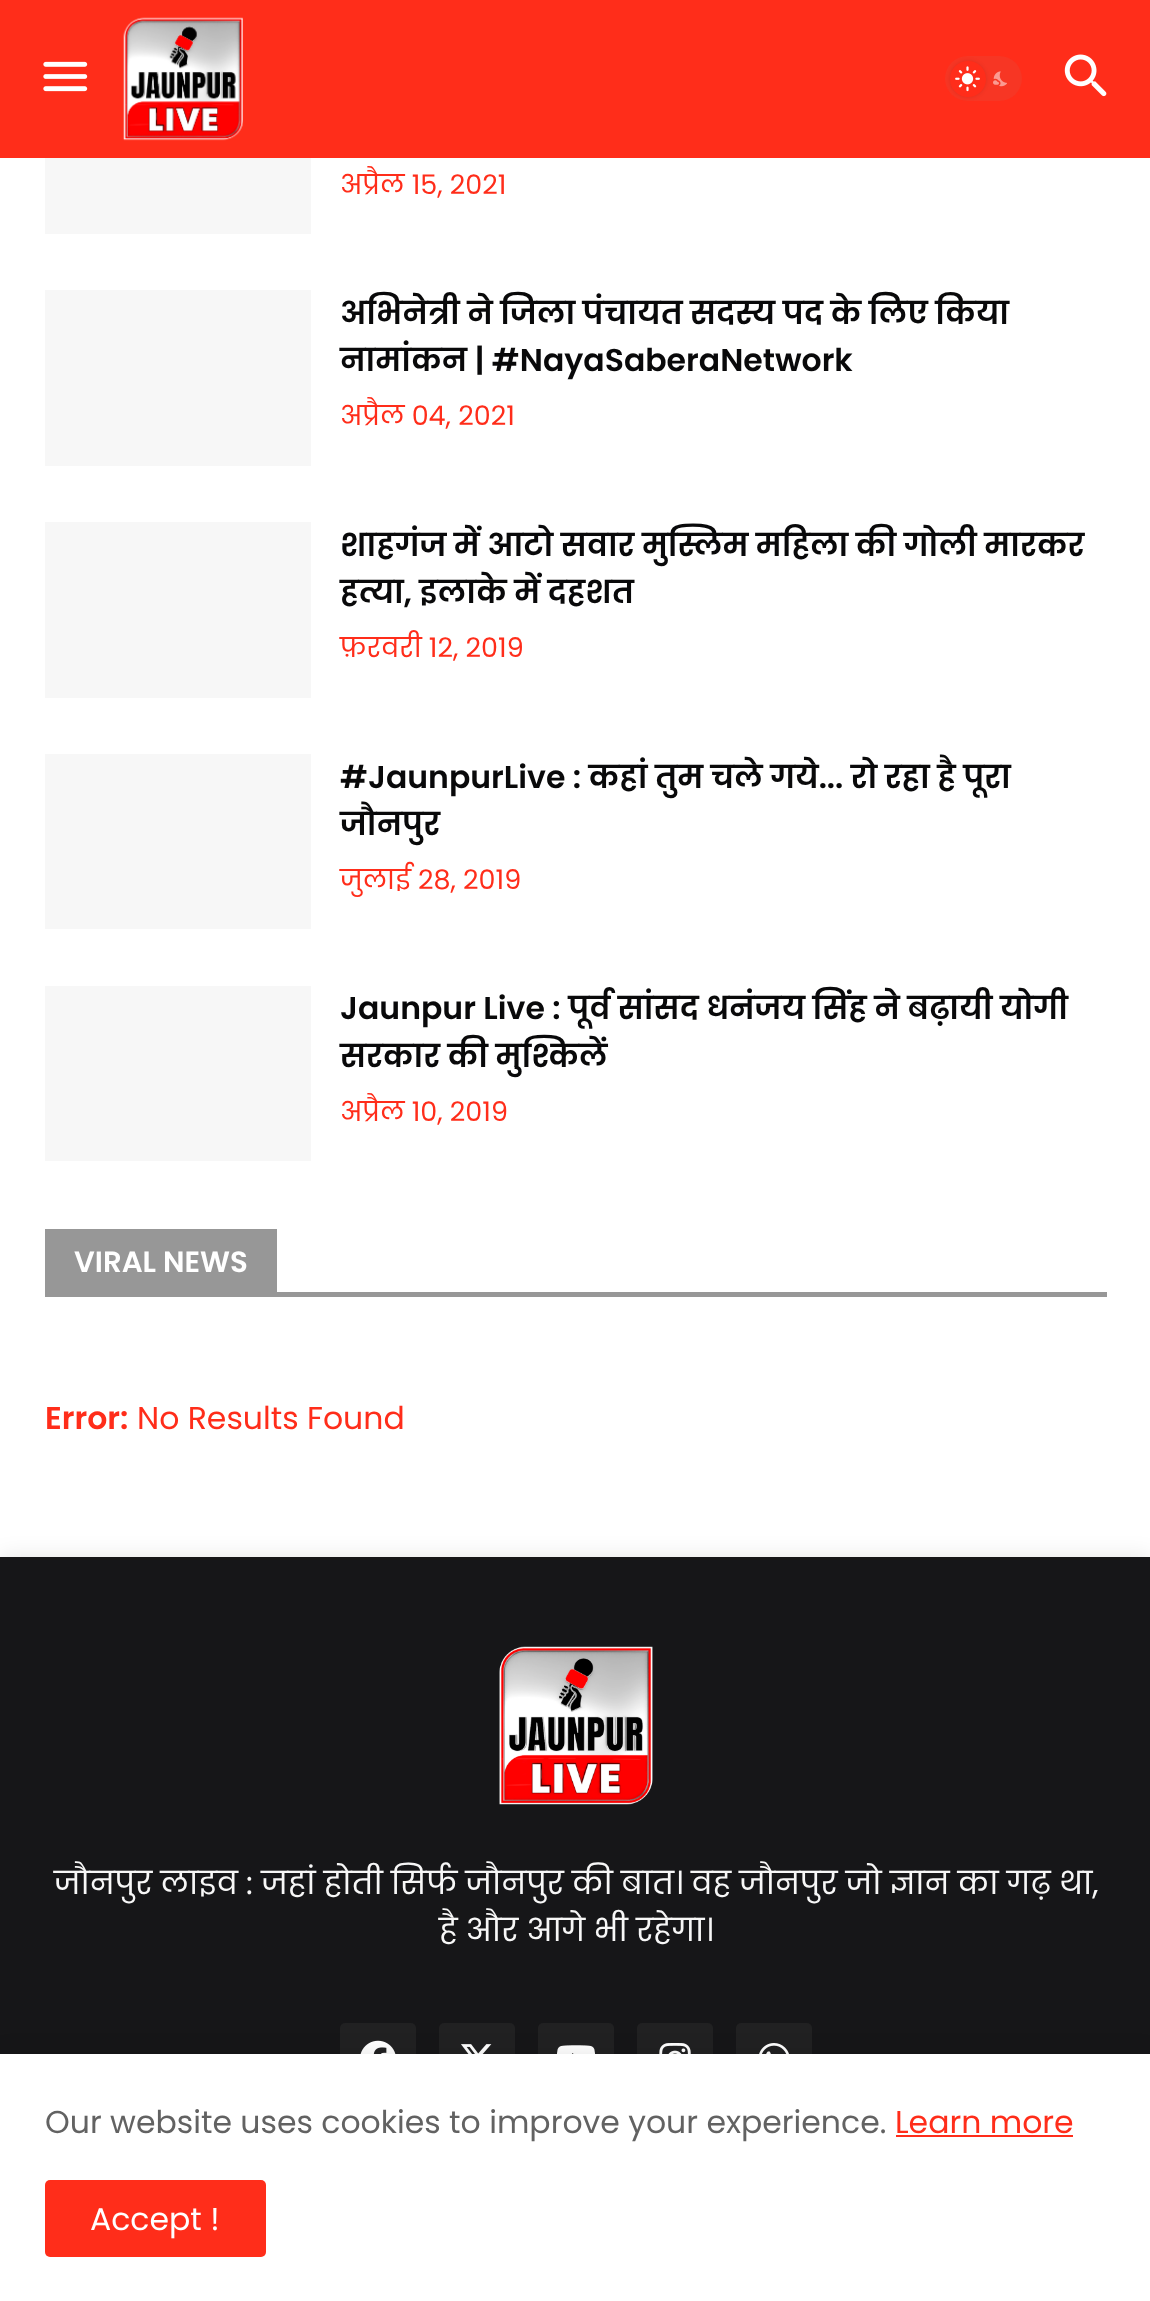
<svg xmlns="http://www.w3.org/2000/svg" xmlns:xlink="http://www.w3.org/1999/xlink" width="1150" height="2301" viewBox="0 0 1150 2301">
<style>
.cls-1{font:27px Poppins;fill:#ff2d1a}
.cls-2{font:600 31.5px Poppins;fill:#09090a}
.cls-3{font:600 29.25px Poppins;fill:#ffffff}
.cls-4{font:600 31.5px Poppins;fill:#ff2d1a}
.cls-5{font:31.5px Poppins;fill:#ff2d1a}
.cls-6{font:31.5px Poppins;fill:#f7f7f7}
.cls-7{font:31.5px Poppins;fill:#626262}
.cls-8{font:31.5px Poppins;fill:#ffffff}
</style>
<rect width="100%" height="100%" fill="#ffffff"/>
<rect fill="#ff2d1a" x="0" y="0" width="1150" height="158"/>
<image xlink:href="image0.png" x="43" y="61" width="45" height="31"/>
<image xlink:href="image1.png" x="123" y="17" width="120" height="124"/>
<rect fill="#f73624" x="945" y="56" width="77" height="45" rx="22.5"/>
<rect fill="#000000" fill-opacity="0.1" filter="blur(2px)" x="950" y="61" width="36" height="36" rx="18"/>
<circle fill="#ff2d1a" cx="968" cy="79" r="18"/>
<image xlink:href="image2.png" x="955" y="66" width="25" height="26"/>
<image xlink:href="image3.png" x="993" y="71" width="14" height="16"/>
<image xlink:href="image4.png" x="1064" y="54" width="43" height="43"/>
<rect fill="#f7f7f7" x="45" y="158" width="266" height="76"/>
<rect fill="#f7f7f7" x="45" y="290" width="266" height="176"/>
<rect fill="#f7f7f7" x="45" y="522" width="266" height="176"/>
<rect fill="#f7f7f7" x="45" y="754" width="266" height="175"/>
<rect fill="#f7f7f7" x="45" y="986" width="266" height="175"/>
<rect fill="#979797" x="45" y="1292" width="1062" height="5"/>
<rect fill="#979797" x="45" y="1229" width="232" height="63"/>
<rect fill="#000000" fill-opacity="0.1" filter="blur(11px)" x="0" y="1557" width="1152" height="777"/>
<rect fill="#161618" x="0" y="1557" width="1150" height="497"/>
<image xlink:href="image5.png" x="499" y="1646" width="154" height="159"/>
<rect fill="#212122" x="340" y="2023" width="76" height="76" rx="5"/>
<image xlink:href="image6.png" x="360" y="2040" width="36" height="14"/>
<rect fill="#212122" x="439" y="2023" width="76" height="76" rx="5"/>
<image xlink:href="image7.png" x="461" y="2044" width="31" height="10"/>
<rect fill="#212122" x="538" y="2023" width="76" height="76" rx="5"/>
<image xlink:href="image8.png" x="557" y="2045" width="38" height="9"/>
<rect fill="#212122" x="637" y="2023" width="76" height="76" rx="5"/>
<image xlink:href="image9.png" x="659" y="2043" width="32" height="11"/>
<rect fill="#212122" x="736" y="2023" width="76" height="76" rx="5"/>
<image xlink:href="image10.png" x="759" y="2043" width="30" height="11"/>
<rect fill="#000000" fill-opacity="0.1" filter="blur(11px)" x="0" y="2054" width="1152" height="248"/>
<rect fill="#ffffff" x="0" y="2054" width="1150" height="247"/>
<rect fill="#ff2d1a" x="896" y="2135" width="177" height="2"/>
<rect fill="#ff2d1a" x="45" y="2180" width="221" height="77" rx="5"/>
<text class="cls-1" x="340" y="194">अप्रैल 15, 2021</text>
<text class="cls-2"><tspan x="340" y="324">अभिनेत्री ने जिला पंचायत सदस्य पद के लिए किया</tspan><tspan x="340" y="371">नामांकन | #NayaSaberaNetwork</tspan></text>
<text class="cls-1" x="340" y="425">अप्रैल 04, 2021</text>
<text class="cls-2"><tspan x="340" y="556">शाहगंज में आटो सवार मुस्लिम महिला की गोली मारकर</tspan><tspan x="340" y="603">हत्या, इलाके में दहशत</tspan></text>
<text class="cls-1" x="340" y="657">फ़रवरी 12, 2019</text>
<text class="cls-2"><tspan x="340" y="788">#JaunpurLive : कहां तुम चले गये... रो रहा है पूरा</tspan><tspan x="340" y="835">जौनपुर</tspan></text>
<text class="cls-1" x="340" y="889">जुलाई 28, 2019</text>
<text class="cls-2"><tspan x="340" y="1019">Jaunpur Live : पूर्व सांसद धनंजय सिंह ने बढ़ायी योगी</tspan><tspan x="340" y="1067">सरकार की मुश्किलें</tspan></text>
<text class="cls-1" x="340" y="1121">अप्रैल 10, 2019</text>
<text class="cls-3" x="74" y="1272">VIRAL NEWS</text>
<text class="cls-4" x="45" y="1429">Error:</text>
<text class="cls-5" x="137" y="1429">No Results Found</text>
<text class="cls-6" x="54" y="1894">जौनपुर लाइव : जहां होती सिर्फ जौनपुर की बात। वह जौनपुर जो ज्ञान का गढ़ था,</text>
<text class="cls-6" x="439" y="1941">है और आगे भी रहेगा।</text>
<text class="cls-7" x="45" y="2133">Our website uses cookies to improve your experience.</text>
<text class="cls-5" x="895" y="2133">Learn more</text>
<text class="cls-8" x="90" y="2230">Accept !</text>
</svg>
